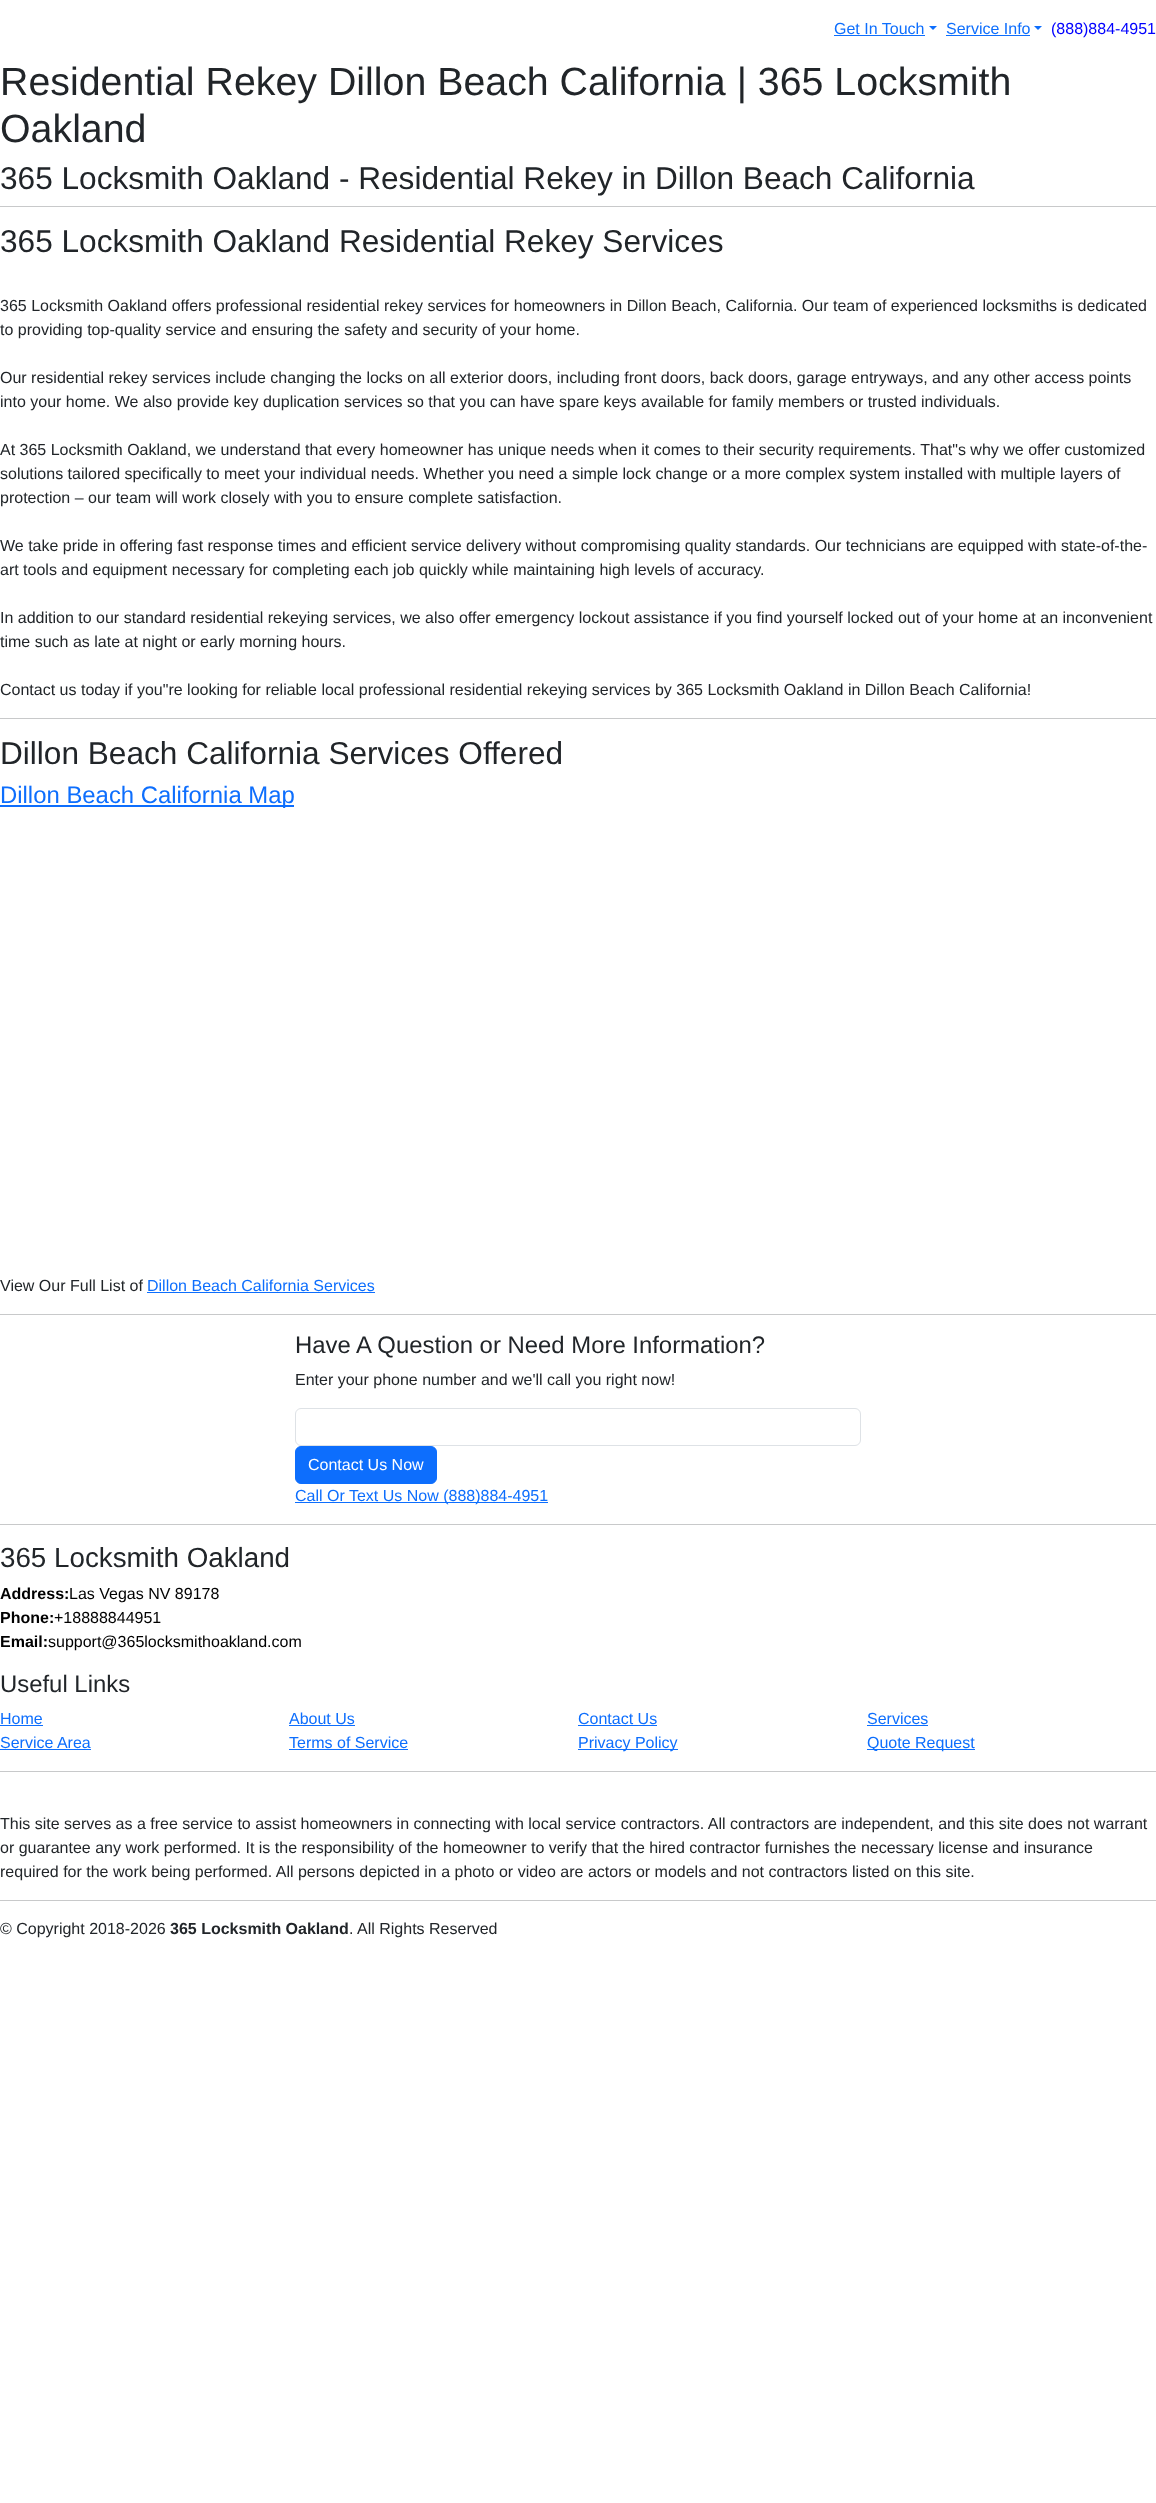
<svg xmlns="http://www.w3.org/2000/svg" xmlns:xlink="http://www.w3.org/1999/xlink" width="1156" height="2503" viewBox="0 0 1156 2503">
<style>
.cls-1{font:16px Liberation Sans;fill:#0d6efd}
.cls-2{font:16px Liberation Sans;fill:#0000ff}
.cls-3{font:39.35px Liberation Sans;fill:#212529}
.cls-4{font:31.6px Liberation Sans;fill:#212529}
.cls-5{font:16px Liberation Sans;fill:#212529}
.cls-6{font:23.9px Liberation Sans;fill:#0d6efd}
.cls-7{font:23.9px Liberation Sans;fill:#212529}
.cls-8{font:16px Liberation Sans;fill:#ffffff}
.cls-9{font:27.75px Liberation Sans;fill:#212529}
.cls-10{font:bold 16px Liberation Sans;fill:#000000}
.cls-11{font:16px Liberation Sans;fill:#000000}
.cls-12{font:bold 16px Liberation Sans;fill:#212529}
</style>
<rect width="100%" height="100%" fill="#ffffff"/>
<rect fill="#0d6efd" x="834" y="35" width="91" height="1"/>
<path fill="#0d6efd" d="M929 26H937L933 30Z"/>
<rect fill="#0d6efd" x="946" y="35" width="84" height="1"/>
<path fill="#0d6efd" d="M1034 26H1042L1038 30Z"/>
<rect fill="#c8c9ca" x="0" y="206" width="1156" height="1"/>
<rect fill="#c8c9ca" x="0" y="718" width="1156" height="1"/>
<rect fill="#0d6efd" x="0" y="805" width="294" height="2"/>
<rect fill="#0d6efd" x="147" y="1292" width="228" height="1"/>
<rect fill="#c8c9ca" x="0" y="1314" width="1156" height="1"/>
<rect fill="none" stroke="#dee2e6" x="295.5" y="1408.5" width="565" height="37" rx="5.5"/>
<rect fill="#0d6efd" stroke="#0d6efd" x="295.5" y="1446.5" width="141" height="37" rx="5.5"/>
<rect fill="#0d6efd" x="295" y="1502" width="253" height="1"/>
<rect fill="#c8c9ca" x="0" y="1524" width="1156" height="1"/>
<rect fill="#0d6efd" x="0" y="1725" width="43" height="1"/>
<rect fill="#0d6efd" x="289" y="1725" width="66" height="1"/>
<rect fill="#0d6efd" x="578" y="1725" width="79" height="1"/>
<rect fill="#0d6efd" x="867" y="1725" width="61" height="1"/>
<rect fill="#0d6efd" x="0" y="1749" width="91" height="1"/>
<rect fill="#0d6efd" x="289" y="1749" width="119" height="1"/>
<rect fill="#0d6efd" x="578" y="1749" width="100" height="1"/>
<rect fill="#0d6efd" x="867" y="1749" width="108" height="1"/>
<rect fill="#c8c9ca" x="0" y="1771" width="1156" height="1"/>
<rect fill="#c8c9ca" x="0" y="1900" width="1156" height="1"/>
<text class="cls-1" x="834" y="34">Get In Touch</text>
<text class="cls-1" x="946" y="34">Service Info</text>
<text class="cls-2" x="1051" y="34">(888)884-4951</text>
<text class="cls-3"><tspan x="0" y="95">Residential Rekey Dillon Beach California | 365 Locksmith</tspan><tspan x="0" y="142">Oakland</tspan></text>
<text class="cls-4"><tspan x="0" y="189">365 Locksmith Oakland - Residential Rekey in Dillon Beach California</tspan><tspan x="0" y="252">365 Locksmith Oakland Residential Rekey Services</tspan></text>
<text class="cls-5"><tspan x="0" y="311">365 Locksmith Oakland offers professional residential rekey services for homeowners in Dillon Beach, California. Our team of experienced locksmiths is dedicated</tspan><tspan x="0" y="335">to providing top-quality service and ensuring the safety and security of your home.</tspan></text>
<text class="cls-5"><tspan x="0" y="383">Our residential rekey services include changing the locks on all exterior doors, including front doors, back doors, garage entryways, and any other access points</tspan><tspan x="0" y="407">into your home. We also provide key duplication services so that you can have spare keys available for family members or trusted individuals.</tspan></text>
<text class="cls-5"><tspan x="0" y="455">At 365 Locksmith Oakland, we understand that every homeowner has unique needs when it comes to their security requirements. That"s why we offer customized</tspan><tspan x="0" y="479">solutions tailored specifically to meet your individual needs. Whether you need a simple lock change or a more complex system installed with multiple layers of</tspan><tspan x="0" y="503">protection – our team will work closely with you to ensure complete satisfaction.</tspan></text>
<text class="cls-5"><tspan x="0" y="551">We take pride in offering fast response times and efficient service delivery without compromising quality standards. Our technicians are equipped with state-of-the-</tspan><tspan x="0" y="575">art tools and equipment necessary for completing each job quickly while maintaining high levels of accuracy.</tspan></text>
<text class="cls-5"><tspan x="0" y="623">In addition to our standard residential rekeying services, we also offer emergency lockout assistance if you find yourself locked out of your home at an inconvenient</tspan><tspan x="0" y="647">time such as late at night or early morning hours.</tspan></text>
<text class="cls-5" x="0" y="695">Contact us today if you"re looking for reliable local professional residential rekeying services by 365 Locksmith Oakland in Dillon Beach California!</text>
<text class="cls-4" x="0" y="764">Dillon Beach California Services Offered</text>
<text class="cls-6" x="0" y="803">Dillon Beach California Map</text>
<text class="cls-5" x="0" y="1291">View Our Full List of</text>
<text class="cls-1" x="147" y="1291">Dillon Beach California Services</text>
<text class="cls-7" x="295" y="1353">Have A Question or Need More Information?</text>
<text class="cls-5" x="295" y="1385">Enter your phone number and we'll call you right now!</text>
<text class="cls-8" x="308" y="1470">Contact Us Now</text>
<text class="cls-1" x="295" y="1501">Call Or Text Us Now (888)884-4951</text>
<text class="cls-9" x="0" y="1567">365 Locksmith Oakland</text>
<text class="cls-10" x="0" y="1599">Address:</text>
<text class="cls-11" x="69" y="1599">Las Vegas NV 89178</text>
<text class="cls-10" x="0" y="1623">Phone:</text>
<text class="cls-11" x="54" y="1623">+18888844951</text>
<text class="cls-10" x="0" y="1647">Email:</text>
<text class="cls-11" x="48" y="1647">support@365locksmithoakland.com</text>
<text class="cls-7" x="0" y="1692">Useful Links</text>
<text class="cls-1" x="0" y="1724">Home</text>
<text class="cls-1" x="289" y="1724">About Us</text>
<text class="cls-1" x="578" y="1724">Contact Us</text>
<text class="cls-1" x="867" y="1724">Services</text>
<text class="cls-1" x="0" y="1748">Service Area</text>
<text class="cls-1" x="289" y="1748">Terms of Service</text>
<text class="cls-1" x="578" y="1748">Privacy Policy</text>
<text class="cls-1" x="867" y="1748">Quote Request</text>
<text class="cls-5"><tspan x="0" y="1829">This site serves as a free service to assist homeowners in connecting with local service contractors. All contractors are independent, and this site does not warrant</tspan><tspan x="0" y="1853">or guarantee any work performed. It is the responsibility of the homeowner to verify that the hired contractor furnishes the necessary license and insurance</tspan><tspan x="0" y="1877">required for the work being performed. All persons depicted in a photo or video are actors or models and not contractors listed on this site.</tspan></text>
<text class="cls-5" x="0" y="1934">© Copyright 2018-2026</text>
<text class="cls-12" x="170" y="1934">365 Locksmith Oakland</text>
<text class="cls-5" x="349" y="1934">. All Rights Reserved</text>
</svg>
